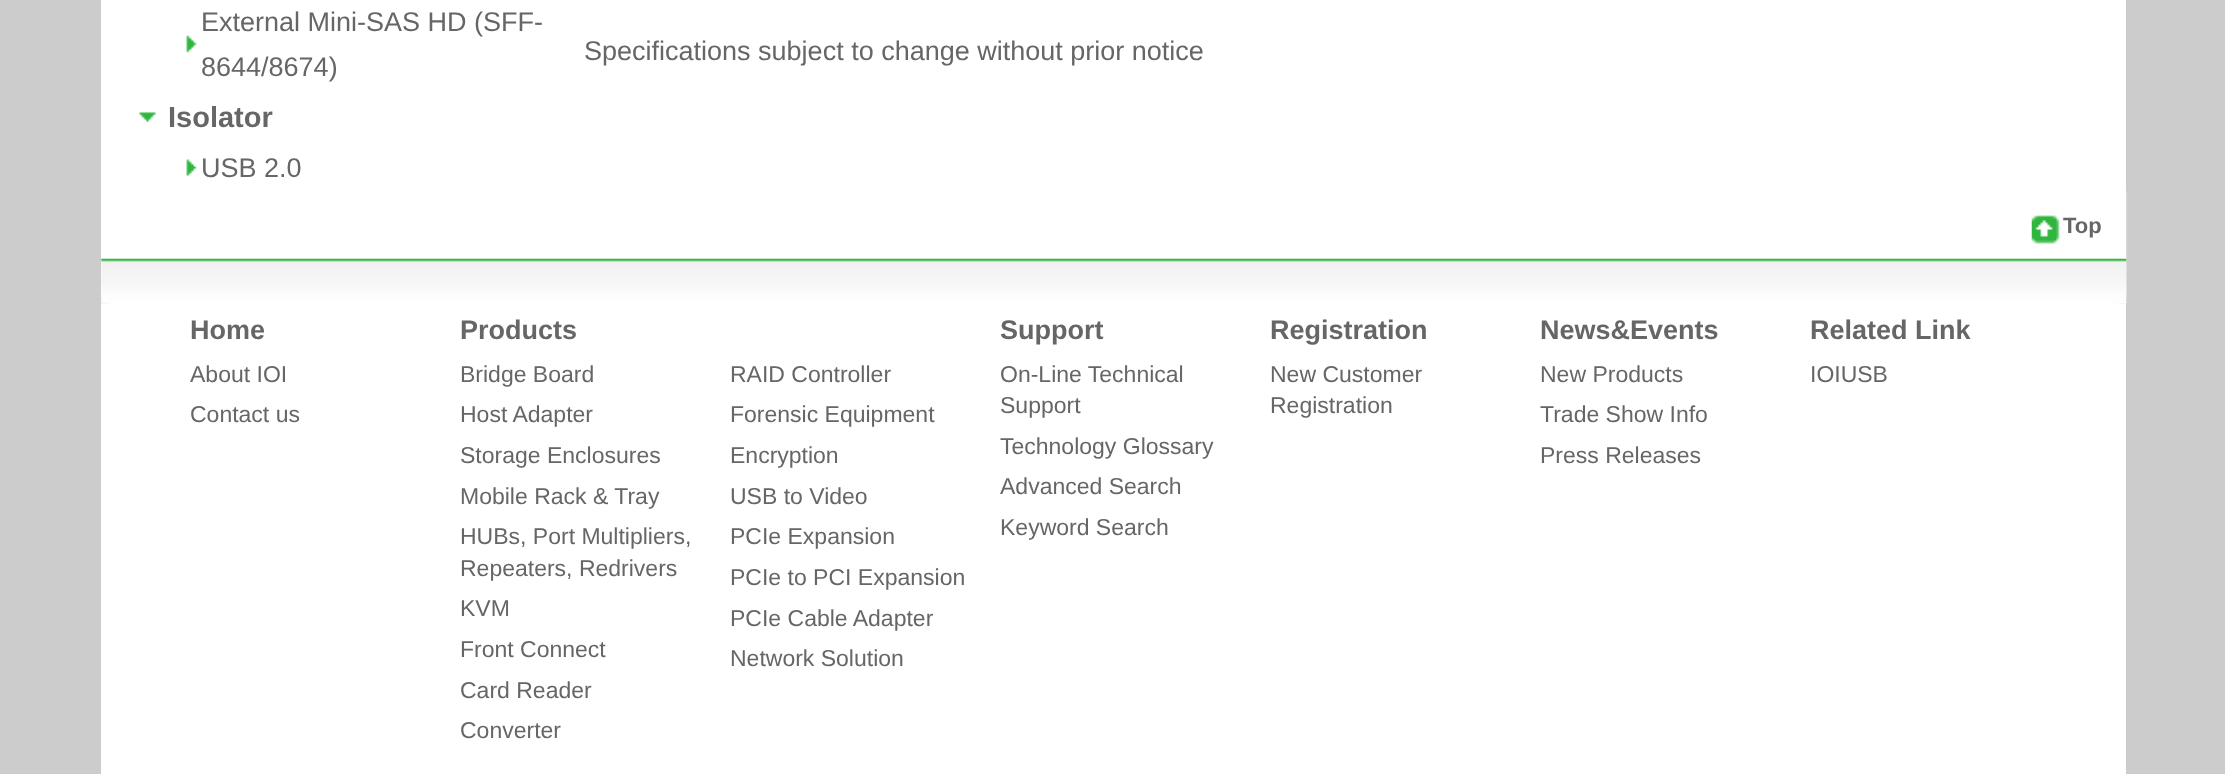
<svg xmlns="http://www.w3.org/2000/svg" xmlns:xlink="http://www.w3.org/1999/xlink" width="2225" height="774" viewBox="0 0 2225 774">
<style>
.cls-1{font:27px Liberation Sans;fill:#666666}
.cls-2{font:bold 29px Liberation Sans;fill:#666666}
.cls-3{font:bold 22px Liberation Sans;fill:#666666}
.cls-4{font:bold 27px Liberation Sans;fill:#666666}
.cls-5{font:23px Liberation Sans;fill:#666666}
</style>
<rect width="100%" height="100%" fill="#cccccc"/>
<rect fill="#ffffff" x="101" y="0" width="2025" height="774"/>
<image xlink:href="image0.png" x="186" y="35" width="11" height="18"/>
<image xlink:href="image1.png" x="139" y="112" width="17" height="11"/>
<image xlink:href="image2.png" x="186" y="159" width="11" height="18"/>
<image xlink:href="image3.png" x="101" y="191" width="2026" height="113"/>
<image xlink:href="image4.png" x="2031" y="215" width="29" height="29"/>
<image xlink:href="image5.png" x="101" y="258" width="2026" height="46"/>
<text class="cls-1"><tspan x="201" y="31">External Mini-SAS HD (SFF-</tspan><tspan x="201" y="76">8644/8674)</tspan></text>
<text class="cls-2" x="168" y="127">Isolator</text>
<text class="cls-1" x="201" y="177">USB 2.0</text>
<text class="cls-1" x="584" y="60">Specifications subject to change without prior notice</text>
<text class="cls-3" x="2063" y="233">Top</text>
<text class="cls-4" x="190" y="339">Home</text>
<text class="cls-5"><tspan x="190" y="382">About IOI</tspan><tspan x="190" y="422">Contact us</tspan></text>
<text class="cls-4" x="460" y="339">Products</text>
<text class="cls-5"><tspan x="460" y="382">Bridge Board</tspan><tspan x="460" y="422">Host Adapter</tspan><tspan x="460" y="463">Storage Enclosures</tspan><tspan x="460" y="504">Mobile Rack &amp; Tray</tspan><tspan x="460" y="544">HUBs, Port Multipliers,</tspan><tspan x="460" y="576">Repeaters, Redrivers</tspan><tspan x="460" y="616">KVM</tspan><tspan x="460" y="657">Front Connect</tspan><tspan x="460" y="698">Card Reader</tspan><tspan x="460" y="738">Converter</tspan></text>
<text class="cls-5"><tspan x="730" y="382">RAID Controller</tspan><tspan x="730" y="422">Forensic Equipment</tspan><tspan x="730" y="463">Encryption</tspan><tspan x="730" y="504">USB to Video</tspan><tspan x="730" y="544">PCIe Expansion</tspan><tspan x="730" y="585">PCIe to PCI Expansion</tspan><tspan x="730" y="626">PCIe Cable Adapter</tspan><tspan x="730" y="666">Network Solution</tspan></text>
<text class="cls-4" x="1000" y="339">Support</text>
<text class="cls-5"><tspan x="1000" y="382">On-Line Technical</tspan><tspan x="1000" y="413">Support</tspan><tspan x="1000" y="454">Technology Glossary</tspan><tspan x="1000" y="494">Advanced Search</tspan><tspan x="1000" y="535">Keyword Search</tspan></text>
<text class="cls-4" x="1270" y="339">Registration</text>
<text class="cls-5"><tspan x="1270" y="382">New Customer</tspan><tspan x="1270" y="413">Registration</tspan></text>
<text class="cls-4" x="1540" y="339">News&amp;Events</text>
<text class="cls-5"><tspan x="1540" y="382">New Products</tspan><tspan x="1540" y="422">Trade Show Info</tspan><tspan x="1540" y="463">Press Releases</tspan></text>
<text class="cls-4" x="1810" y="339">Related Link</text>
<text class="cls-5" x="1810" y="382">IOIUSB</text>
</svg>
